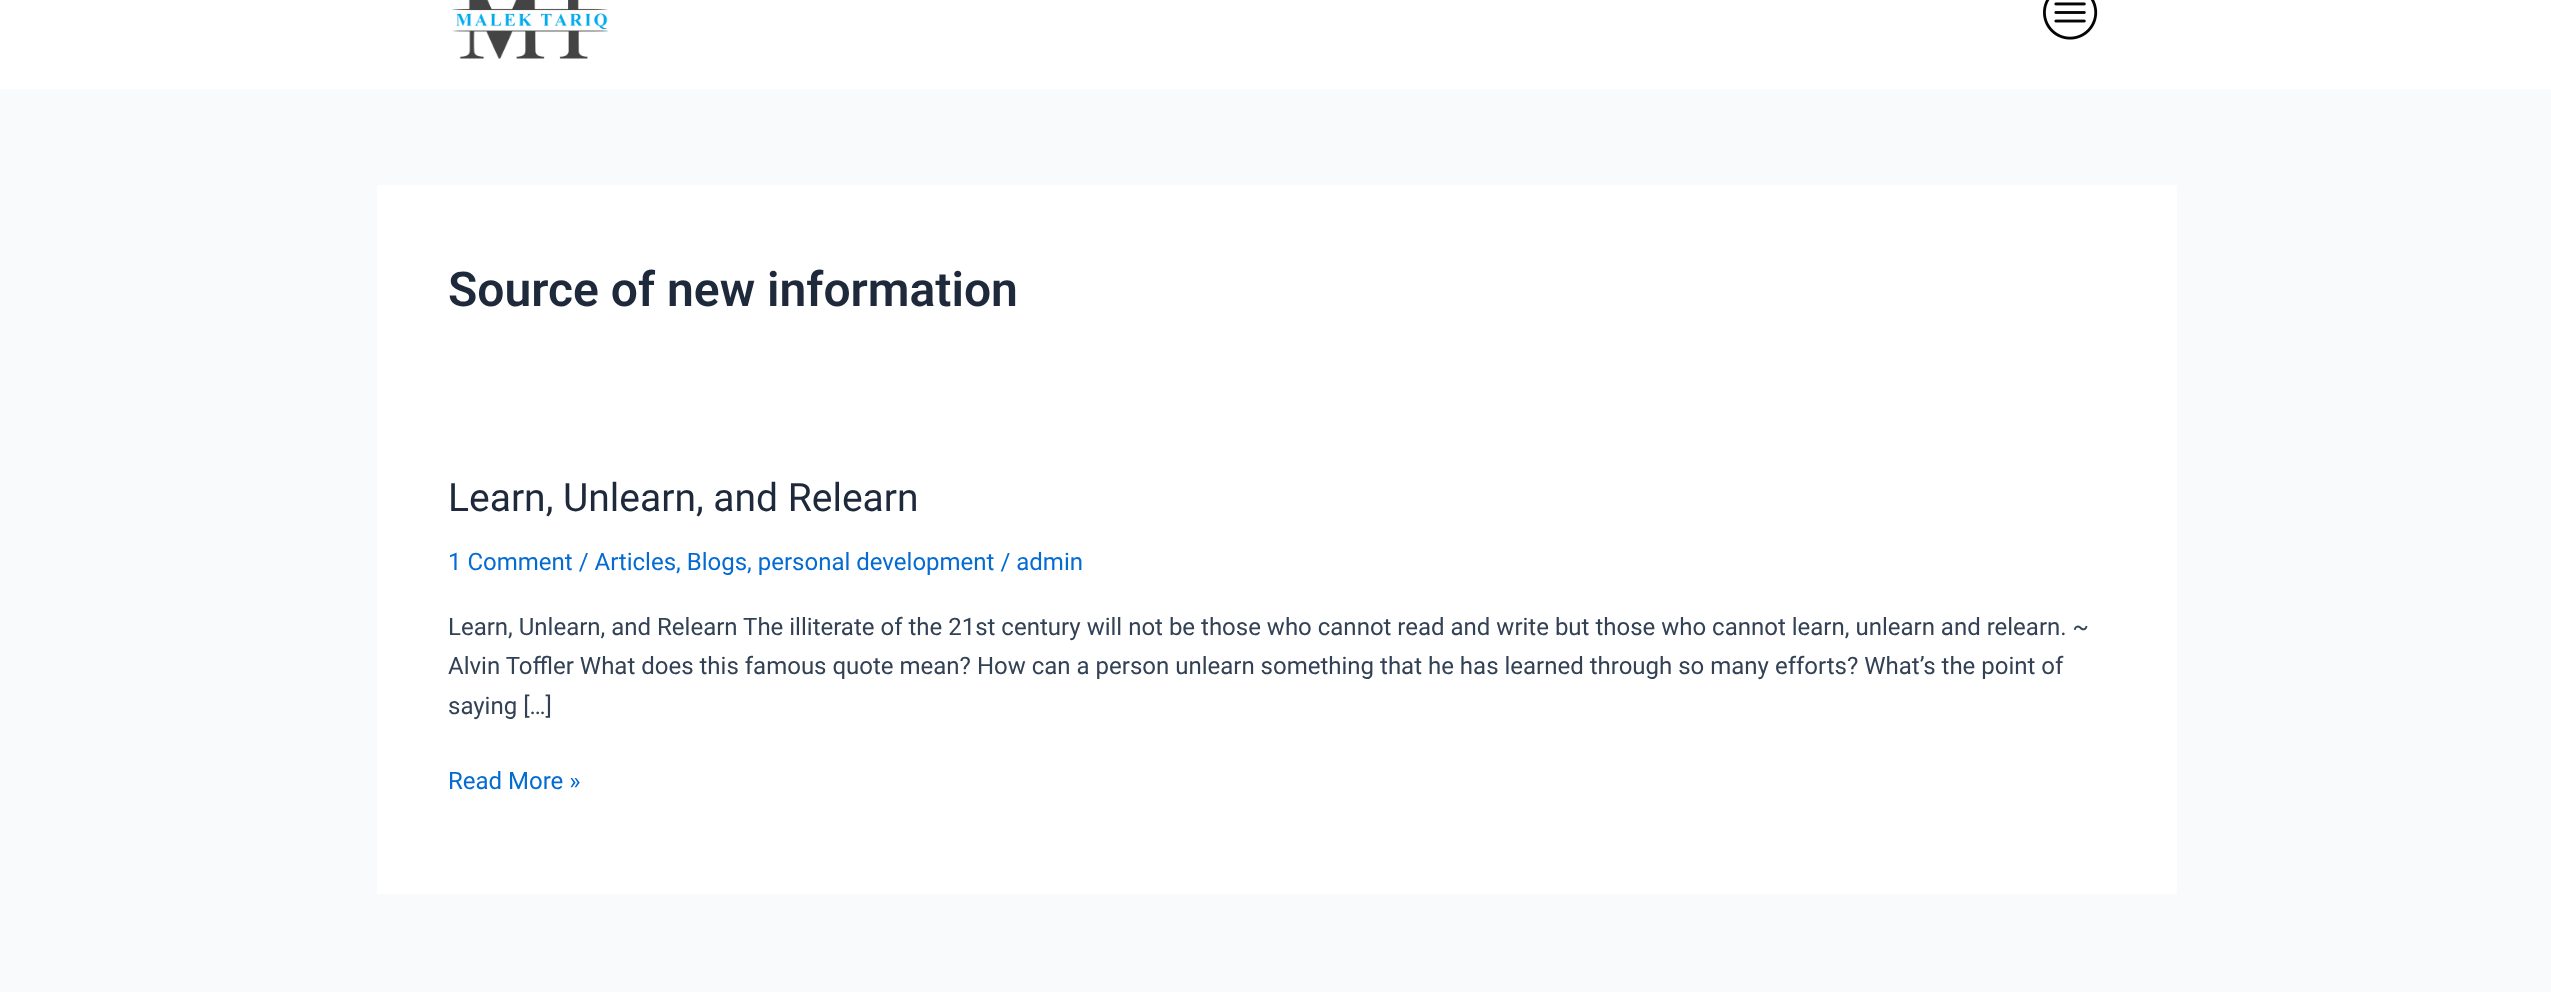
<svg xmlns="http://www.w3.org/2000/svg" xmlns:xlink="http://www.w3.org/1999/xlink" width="2551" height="992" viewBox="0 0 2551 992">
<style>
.cls-1{font:600 48px Roboto;fill:#1e293b}
.cls-2{font:39px Roboto;fill:#1e293b}
.cls-3{font:24px Roboto;fill:#046bd2}
.cls-4{font:24px Roboto;fill:#334155}
</style>
<rect width="100%" height="100%" fill="#f9fafb"/>
<rect fill="#ffffff" x="0" y="0" width="2551" height="89"/>
<image xlink:href="image0.png" x="451" y="0" width="157" height="59"/>
<image xlink:href="image1.png" x="2043" y="0" width="55" height="40"/>
<rect fill="#ffffff" x="377" y="185" width="1800" height="709"/>
<text class="cls-1" x="448" y="306">Source of new information</text>
<text class="cls-2" x="448" y="511">Learn, Unlearn, and Relearn</text>
<text class="cls-3" x="448" y="570">1 Comment / Articles, Blogs, personal development / admin</text>
<text class="cls-4"><tspan x="448" y="635">Learn, Unlearn, and Relearn The illiterate of the 21st century will not be those who cannot read and write but those who cannot learn, unlearn and relearn. ~</tspan><tspan x="448" y="674">Alvin Toffler What does this famous quote mean? How can a person unlearn something that he has learned through so many efforts? What’s the point of</tspan><tspan x="448" y="714">saying […]</tspan></text>
<text class="cls-3" x="448" y="789">Read More »</text>
</svg>
